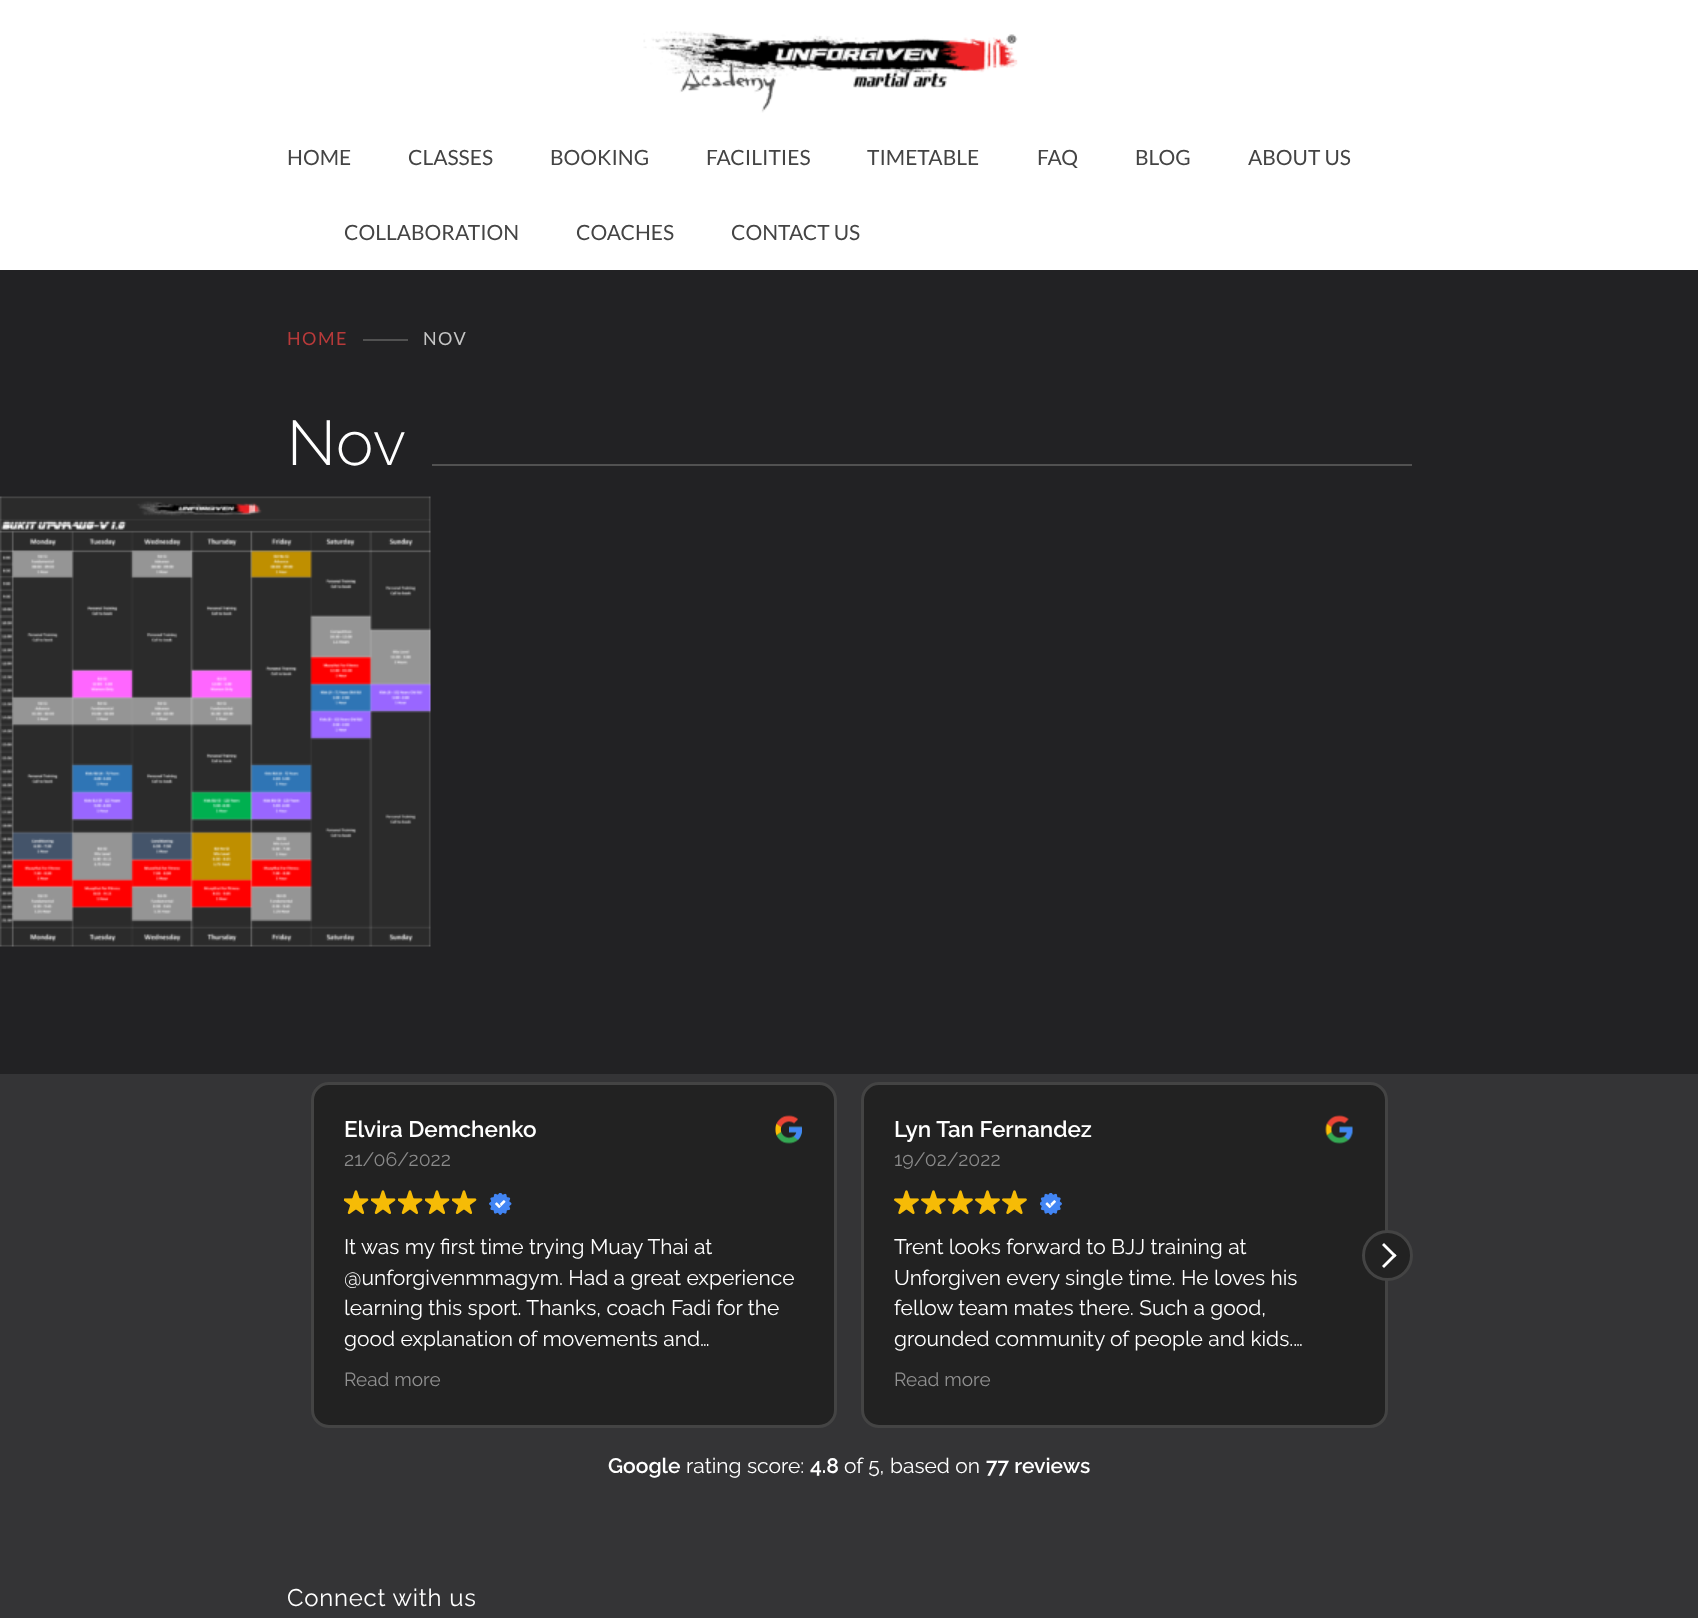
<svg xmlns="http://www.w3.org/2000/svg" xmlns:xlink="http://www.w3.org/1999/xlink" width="1698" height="1618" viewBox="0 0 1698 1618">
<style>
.cls-1{font:21px Lato;fill:#444444}
.cls-2{font:18px Lato;letter-spacing:1.5px;fill:#b83a3a}
.cls-3{font:18px Lato;letter-spacing:1.5px;fill:#c5c5c5}
.cls-4{font:300 63px Raleway;letter-spacing:0.75px;fill:#ffffff}
.cls-5{font:600 22.5px Raleway;fill:#ffffff}
.cls-6{font:19.5px Raleway;fill:#8a8a8a}
.cls-7{font:21px Raleway;fill:#ffffff}
.cls-8{font:19px Raleway;fill:#919191}
.cls-9{font:600 21px Raleway;fill:#ffffff}
.cls-10{font:24px Raleway;letter-spacing:0.75px;fill:#ffffff}
</style>
<rect width="100%" height="100%" fill="#222224"/>
<rect fill="#ffffff" x="0" y="0" width="1698" height="270"/>
<image xlink:href="image0.png" x="643" y="31" width="375" height="82"/>
<rect fill="#515151" x="363" y="339" width="45" height="2"/>
<rect fill="#515151" x="432" y="464" width="980" height="2"/>
<image xlink:href="image1.png" x="0" y="496" width="431" height="451"/>
<rect fill="#343436" x="0" y="1074" width="1698" height="544"/>
<rect fill="#222222" stroke="#444444" stroke-width="3" x="312.5" y="1083.5" width="523" height="343" rx="16.5"/>
<image xlink:href="image2.png" x="775" y="1115" width="27" height="29"/>
<image xlink:href="image3.png" x="344" y="1190" width="25" height="24"/>
<image xlink:href="image3.png" x="371" y="1190" width="25" height="24"/>
<image xlink:href="image3.png" x="398" y="1190" width="25" height="24"/>
<image xlink:href="image3.png" x="425" y="1190" width="25" height="24"/>
<image xlink:href="image3.png" x="452" y="1190" width="25" height="24"/>
<image xlink:href="image4.png" x="489" y="1193" width="23" height="22"/>
<rect fill="#222222" stroke="#444444" stroke-width="3" x="862.5" y="1083.5" width="524" height="343" rx="16.5"/>
<image xlink:href="image5.png" x="1325" y="1115" width="28" height="29"/>
<image xlink:href="image6.png" x="894" y="1190" width="25" height="25"/>
<image xlink:href="image6.png" x="921" y="1190" width="25" height="25"/>
<image xlink:href="image6.png" x="948" y="1190" width="25" height="25"/>
<image xlink:href="image6.png" x="975" y="1190" width="25" height="25"/>
<image xlink:href="image6.png" x="1002" y="1190" width="25" height="25"/>
<image xlink:href="image7.png" x="1040" y="1193" width="22" height="22"/>
<circle fill="#222222" stroke="#444444" stroke-width="3" cx="1387.5" cy="1255.5" r="24"/>
<path fill="#ffffff" d="M1394.5 1257.5L1382 1245L1384 1243L1396.5 1255.5Z"/>
<path fill="#ffffff" d="M1384 1268L1382 1266L1394.5 1253.5L1396.5 1255.5Z"/>
<text class="cls-1" x="287" y="165">HOME</text>
<text class="cls-1" x="408" y="165">CLASSES</text>
<text class="cls-1" x="550" y="165">BOOKING</text>
<text class="cls-1" x="706" y="165">FACILITIES</text>
<text class="cls-1" x="867" y="165">TIMETABLE</text>
<text class="cls-1" x="1037" y="165">FAQ</text>
<text class="cls-1" x="1135" y="165">BLOG</text>
<text class="cls-1" x="1248" y="165">ABOUT US</text>
<text class="cls-1" x="344" y="240">COLLABORATION</text>
<text class="cls-1" x="576" y="240">COACHES</text>
<text class="cls-1" x="731" y="240">CONTACT US</text>
<text class="cls-2" x="287" y="345">HOME</text>
<text class="cls-3" x="423" y="345">NOV</text>
<text class="cls-4" x="287" y="465">Nov</text>
<text class="cls-5" x="344" y="1137">Elvira Demchenko</text>
<text class="cls-6" x="344" y="1166">21/06/2022</text>
<text class="cls-7"><tspan x="344" y="1254">It was my first time trying Muay Thai at</tspan><tspan x="344" y="1285">@unforgivenmmagym. Had a great experience</tspan><tspan x="344" y="1315">learning this sport. Thanks, coach Fadi for the</tspan><tspan x="344" y="1346">good explanation of movements and…</tspan></text>
<text class="cls-8" x="344" y="1386">Read more</text>
<text class="cls-5" x="894" y="1137">Lyn Tan Fernandez</text>
<text class="cls-6" x="894" y="1166">19/02/2022</text>
<text class="cls-7"><tspan x="894" y="1254">Trent looks forward to BJJ training at</tspan><tspan x="894" y="1285">Unforgiven every single time. He loves his</tspan><tspan x="894" y="1315">fellow team mates there. Such a good,</tspan><tspan x="894" y="1346">grounded community of people and kids.…</tspan></text>
<text class="cls-8" x="894" y="1386">Read more</text>
<text class="cls-9" x="608" y="1473">Google</text>
<text class="cls-7" x="686" y="1473">rating score:</text>
<text class="cls-9" x="810" y="1473">4.8</text>
<text class="cls-7" x="844" y="1473">of 5,</text>
<text class="cls-7" x="890" y="1473">based on</text>
<text class="cls-9" x="986" y="1473">77 reviews</text>
<text class="cls-10" x="287" y="1606">Connect with us</text>
</svg>
